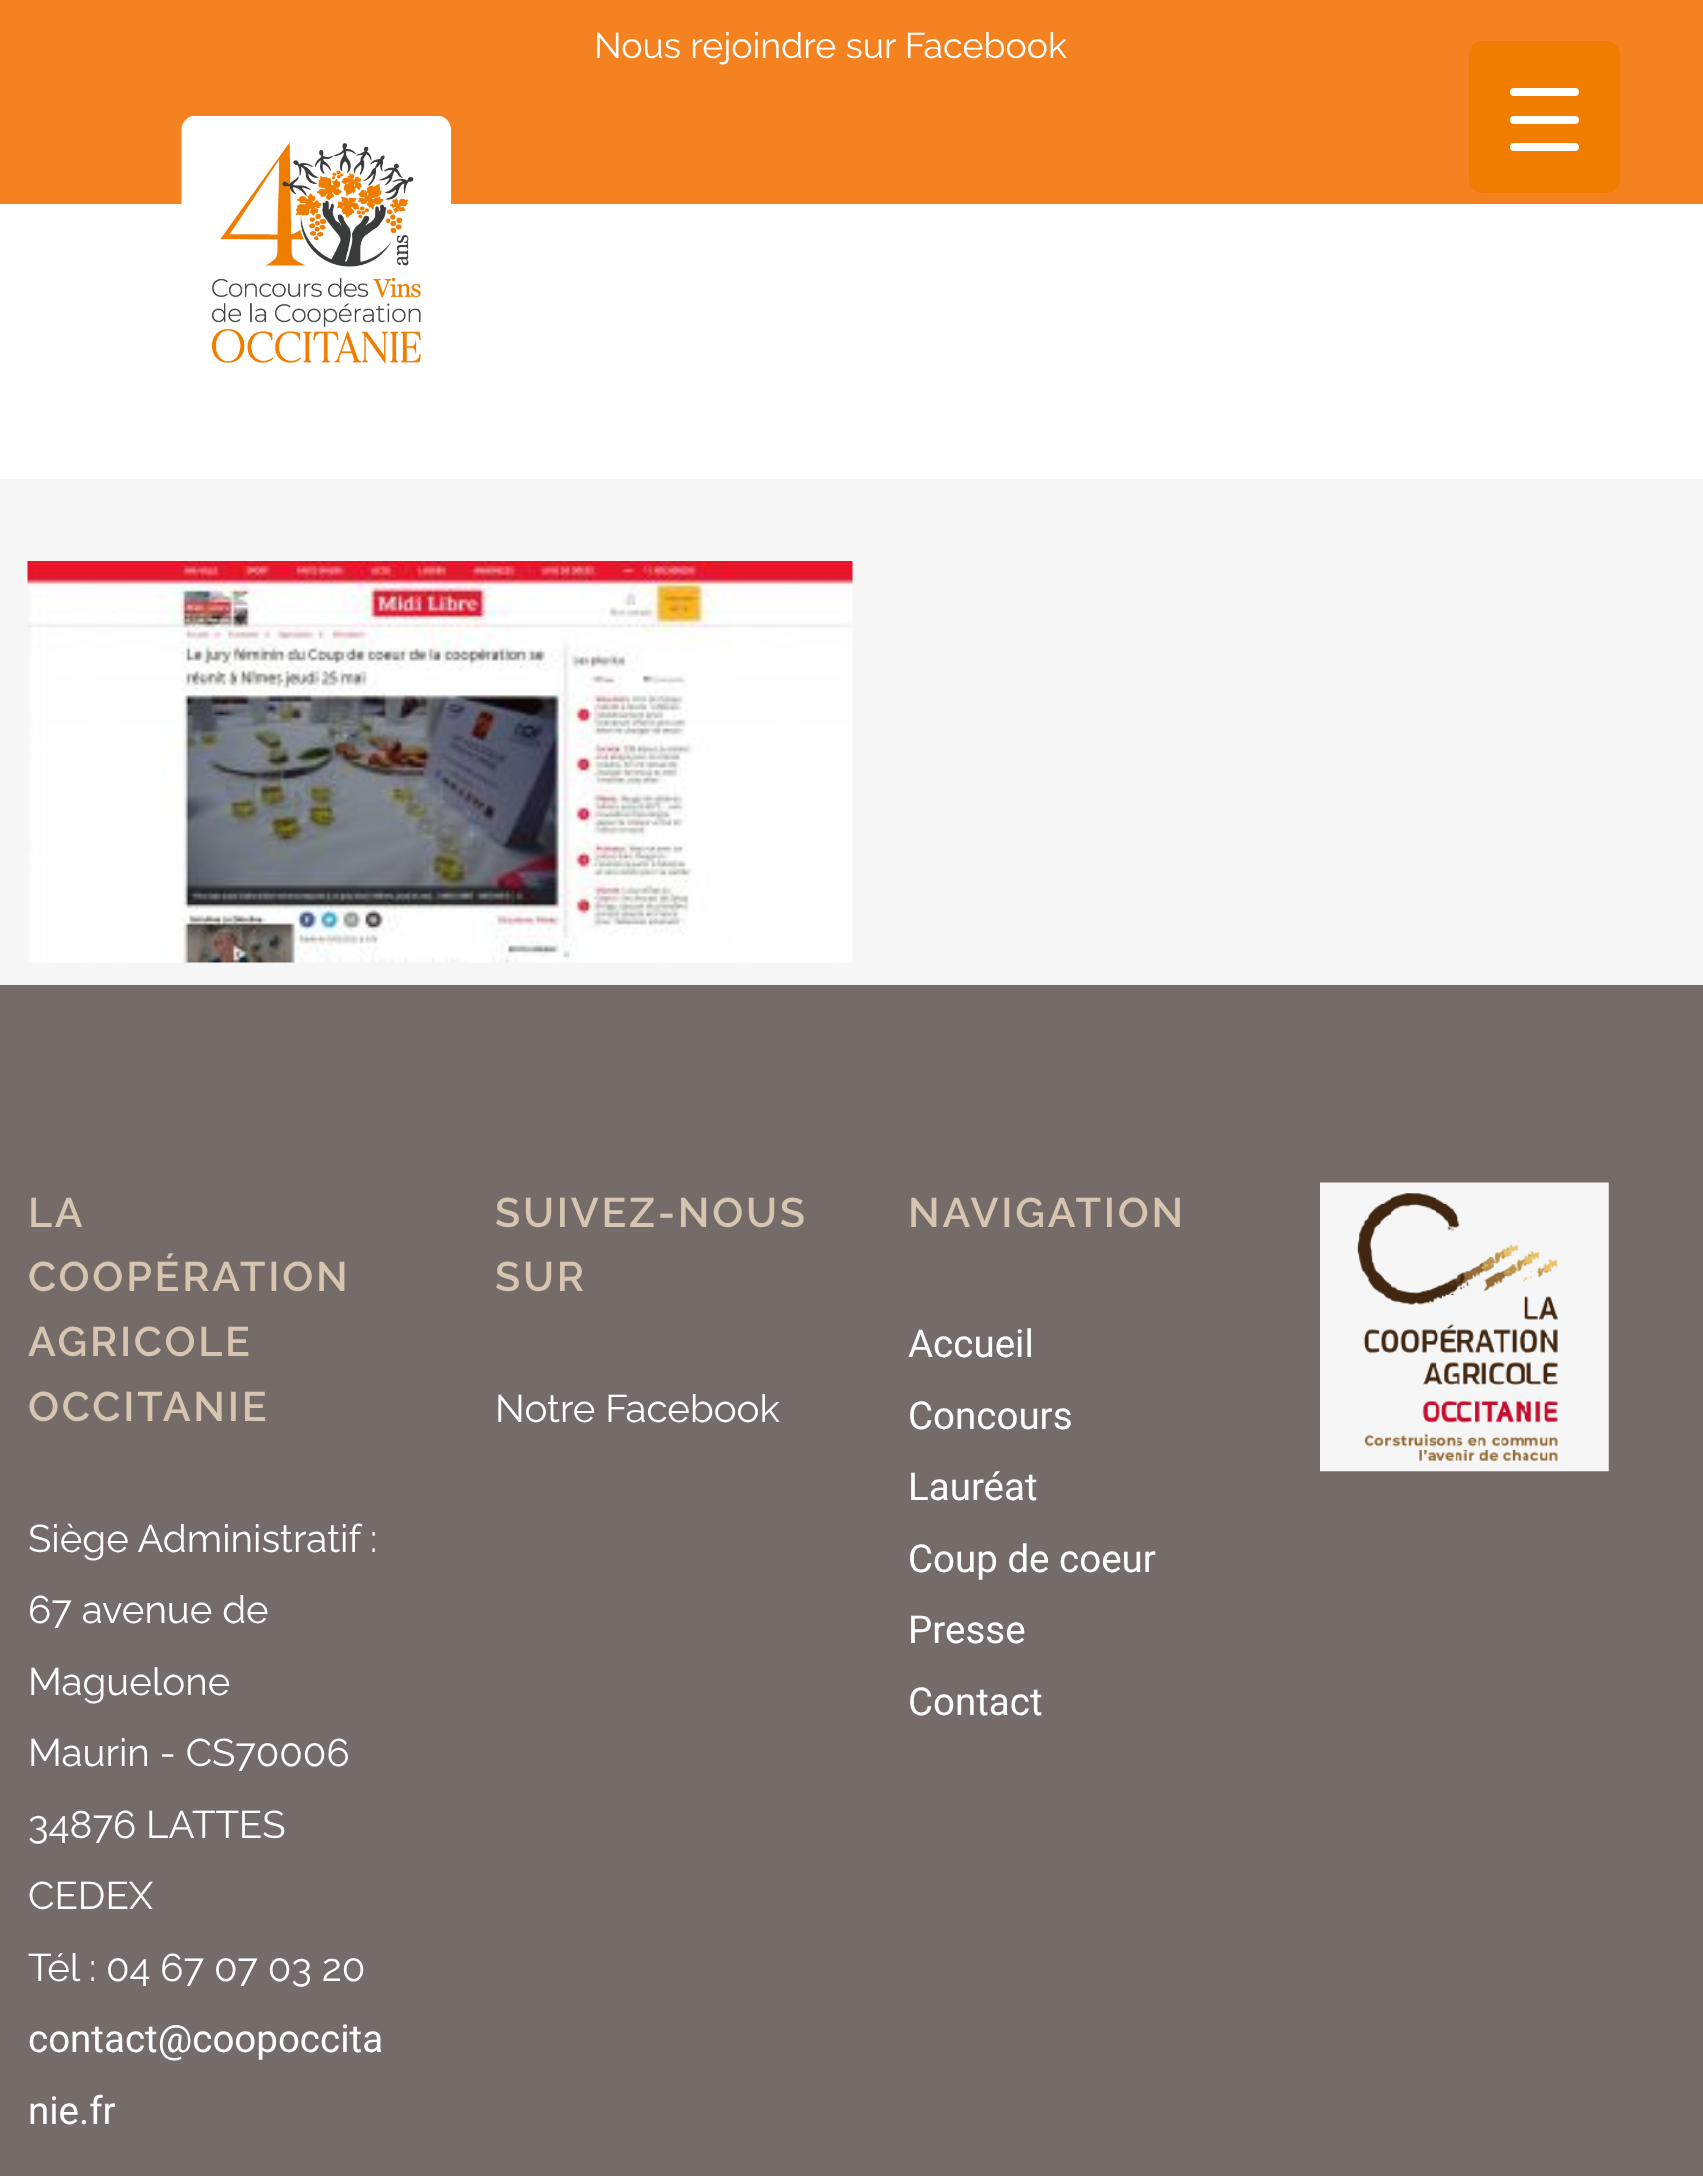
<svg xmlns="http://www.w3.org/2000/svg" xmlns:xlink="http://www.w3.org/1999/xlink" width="1703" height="2176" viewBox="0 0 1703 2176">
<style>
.cls-1{font:35.75px Raleway;fill:#ffffff}
.cls-2{font:600 41.25px Raleway;letter-spacing:2.75px;fill:#d6c6b1}
.cls-3{font:38.5px Raleway;fill:#ffffff}
.cls-4{font:38.5px Roboto;fill:#ffffff}
</style>
<rect width="100%" height="100%" fill="#f6f6f6"/>
<rect fill="#f58220" x="0" y="0" width="1703" height="204"/>
<rect fill="#ffffff" x="0" y="204" width="1703" height="275"/>
<image xlink:href="image0.png" x="181" y="116" width="271" height="248"/>
<image xlink:href="image1.png" x="27" y="561" width="826" height="402"/>
<rect fill="#756c69" x="0" y="985" width="1703" height="1191"/>
<image xlink:href="image2.png" x="1320" y="1182" width="289" height="290"/>
<rect fill="#f07d00" x="1469" y="41" width="151" height="152" rx="14"/>
<rect fill="#ffffff" x="1510" y="116" width="69" height="8" rx="4"/>
<rect fill="#ffffff" x="1510" y="88" width="69" height="8" rx="4"/>
<rect fill="#ffffff" x="1510" y="143" width="69" height="8" rx="4"/>
<text class="cls-1" x="594" y="58">Nous rejoindre sur Facebook</text>
<text class="cls-2"><tspan x="28" y="1227">LA</tspan><tspan x="28" y="1291">COOPÉRATION</tspan><tspan x="28" y="1356">AGRICOLE</tspan><tspan x="28" y="1421">OCCITANIE</tspan></text>
<text class="cls-3"><tspan x="28" y="1552">Siège Administratif :</tspan><tspan x="28" y="1623">67 avenue de</tspan><tspan x="28" y="1695">Maguelone</tspan><tspan x="28" y="1766">Maurin - CS70006</tspan><tspan x="28" y="1838">34876 LATTES</tspan><tspan x="28" y="1909">CEDEX</tspan><tspan x="28" y="1981">Tél : 04 67 07 03 20</tspan></text>
<text class="cls-4"><tspan x="28" y="2052">contact@coopoccita</tspan><tspan x="28" y="2124">nie.fr</tspan></text>
<text class="cls-2"><tspan x="495" y="1227">SUIVEZ-NOUS</tspan><tspan x="495" y="1291">SUR</tspan></text>
<text class="cls-3" x="495" y="1422">Notre Facebook</text>
<text class="cls-2" x="908" y="1227">NAVIGATION</text>
<text class="cls-4"><tspan x="908" y="1357">Accueil</tspan><tspan x="908" y="1429">Concours</tspan><tspan x="908" y="1500">Lauréat</tspan><tspan x="908" y="1572">Coup de coeur</tspan><tspan x="908" y="1643">Presse</tspan><tspan x="908" y="1715">Contact</tspan></text>
</svg>
